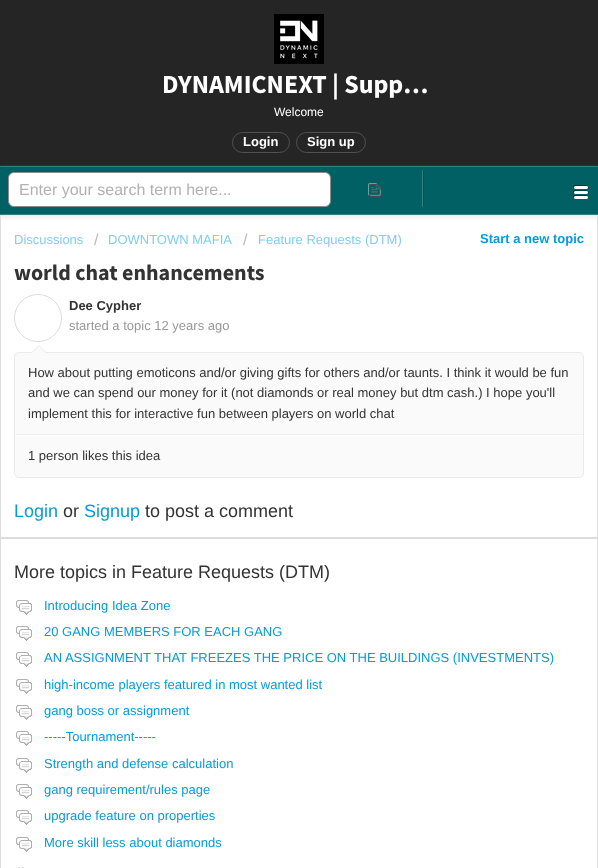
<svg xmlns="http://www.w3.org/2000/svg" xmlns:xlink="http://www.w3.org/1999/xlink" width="598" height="868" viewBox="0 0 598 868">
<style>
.cls-1{font:bold 26px Source Sans Pro;fill:#ffffff}
.cls-2{font:12px Liberation Sans;fill:#ffffff}
.cls-3{font:bold 13px Liberation Sans;fill:#ffffff}
.cls-4{font:16px Liberation Sans;fill:#b2b2b2}
.cls-5{font:13px Liberation Sans;fill:#82ceed}
.cls-6{font:16px Liberation Sans;fill:#bbbbbb}
.cls-7{font:bold 13px Liberation Sans;fill:#049cdb}
.cls-8{font:bold 22px Source Sans Pro;fill:#333333}
.cls-9{font:bold 13px Liberation Sans;fill:#333333}
.cls-10{font:13px Liberation Sans;fill:#999999}
.cls-11{font:13px Liberation Sans;fill:#333333}
.cls-12{font:18px Liberation Sans;fill:#049cdb}
.cls-13{font:18px Liberation Sans;fill:#333333}
.cls-14{font:13px Liberation Sans;fill:#049cdb}
</style>
<rect width="100%" height="100%" fill="#252525"/>
<image xlink:href="image0.png" x="274" y="14" width="50" height="50"/>
<rect fill="none" stroke="#515151" x="232.5" y="132.5" width="57" height="20" rx="10"/>
<rect fill="none" stroke="#515151" x="296.5" y="132.5" width="69" height="20" rx="10"/>
<rect fill="#ffffff" stroke="#dcdcdc" x="0.5" y="215.5" width="597" height="322"/>
<rect fill="#eeeeee" filter="blur(2px)" x="0" y="169" width="598" height="49"/>
<rect fill="#006063" x="0" y="167" width="598" height="47"/>
<rect fill="#338082" x="0" y="166" width="598" height="1"/>
<rect fill="#338082" x="0" y="214" width="598" height="1"/>
<image xlink:href="image1.png" x="573" y="185" width="15" height="14"/>
<rect fill="#ffffff" stroke="#8c8c8c" x="8.5" y="172.5" width="322" height="34" rx="5.5"/>
<rect fill="#004d4f" x="423" y="170" width="1" height="37"/>
<rect fill="#338082" x="422" y="170" width="1" height="37"/>
<image xlink:href="image2.png" x="368" y="183" width="14" height="14"/>
<circle fill="none" stroke="#dddddd" cx="38" cy="318" r="23.5"/>
<rect fill="#fafafa" stroke="#ebebeb" x="14.5" y="352.5" width="569" height="125" rx="4.5"/>
<path fill="#ebebeb" d="M47 353H31L39 345Z"/>
<path fill="#fafafa" d="M46 353H32L39 346Z"/>
<rect fill="#efefef" x="15" y="434" width="568" height="1"/>
<rect fill="#ffffff" x="15" y="435" width="568" height="1"/>
<rect fill="#ffffff" stroke="#dcdcdc" x="0.5" y="538.5" width="597" height="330"/>
<image xlink:href="image3.png" x="16" y="600" width="16" height="15"/>
<image xlink:href="image3.png" x="16" y="626" width="16" height="15"/>
<image xlink:href="image3.png" x="16" y="652" width="16" height="15"/>
<image xlink:href="image3.png" x="16" y="679" width="16" height="15"/>
<image xlink:href="image3.png" x="16" y="705" width="16" height="15"/>
<image xlink:href="image3.png" x="16" y="731" width="16" height="15"/>
<image xlink:href="image3.png" x="16" y="758" width="16" height="15"/>
<image xlink:href="image3.png" x="16" y="784" width="16" height="15"/>
<image xlink:href="image3.png" x="16" y="810" width="16" height="15"/>
<image xlink:href="image3.png" x="16" y="837" width="16" height="15"/>
<image xlink:href="image4.png" x="18" y="867" width="6" height="1"/>
<text class="cls-1" x="162" y="93">DYNAMICNEXT | Supp…</text>
<text class="cls-2" x="274" y="116">Welcome</text>
<text class="cls-3" x="243" y="146">Login</text>
<text class="cls-3" x="307" y="146">Sign up</text>
<text class="cls-4" x="19" y="195">Enter your search term here...</text>
<text class="cls-5" x="14" y="244">Discussions</text>
<text class="cls-6" x="94" y="245">/</text>
<text class="cls-5" x="108" y="244">DOWNTOWN MAFIA</text>
<text class="cls-6" x="243" y="245">/</text>
<text class="cls-5" x="258" y="244">Feature Requests (DTM)</text>
<text class="cls-7" x="480" y="243">Start a new topic</text>
<text class="cls-8" x="14" y="280">world chat enhancements</text>
<text class="cls-9" x="69" y="310">Dee Cypher</text>
<text class="cls-10" x="69" y="330">started a topic 12 years ago</text>
<text class="cls-11"><tspan x="28" y="377">How about putting emoticons and/or giving gifts for others and/or taunts. I think it would be fun</tspan><tspan x="28" y="397">and we can spend our money for it (not diamonds or real money but dtm cash.) I hope you'll</tspan><tspan x="28" y="418">implement this for interactive fun between players on world chat</tspan></text>
<text class="cls-11" x="28" y="460">1 person likes this idea</text>
<text class="cls-12" x="14" y="517">Login</text>
<text class="cls-13" x="63" y="517">or</text>
<text class="cls-12" x="84" y="517">Signup</text>
<text class="cls-13" x="145" y="517">to post a comment</text>
<text class="cls-13" x="14" y="578">More topics in Feature Requests (DTM)</text>
<text class="cls-14" x="44" y="610">Introducing Idea Zone</text>
<text class="cls-14" x="44" y="636">20 GANG MEMBERS FOR EACH GANG</text>
<text class="cls-14" x="44" y="662">AN ASSIGNMENT THAT FREEZES THE PRICE ON THE BUILDINGS (INVESTMENTS)</text>
<text class="cls-14" x="44" y="689">high-income players featured in most wanted list</text>
<text class="cls-14" x="44" y="715">gang boss or assignment</text>
<text class="cls-14" x="44" y="741">-----Tournament-----</text>
<text class="cls-14" x="44" y="768">Strength and defense calculation</text>
<text class="cls-14" x="44" y="794">gang requirement/rules page</text>
<text class="cls-14" x="44" y="820">upgrade feature on properties</text>
<text class="cls-14" x="44" y="847">More skill less about diamonds</text>
</svg>
